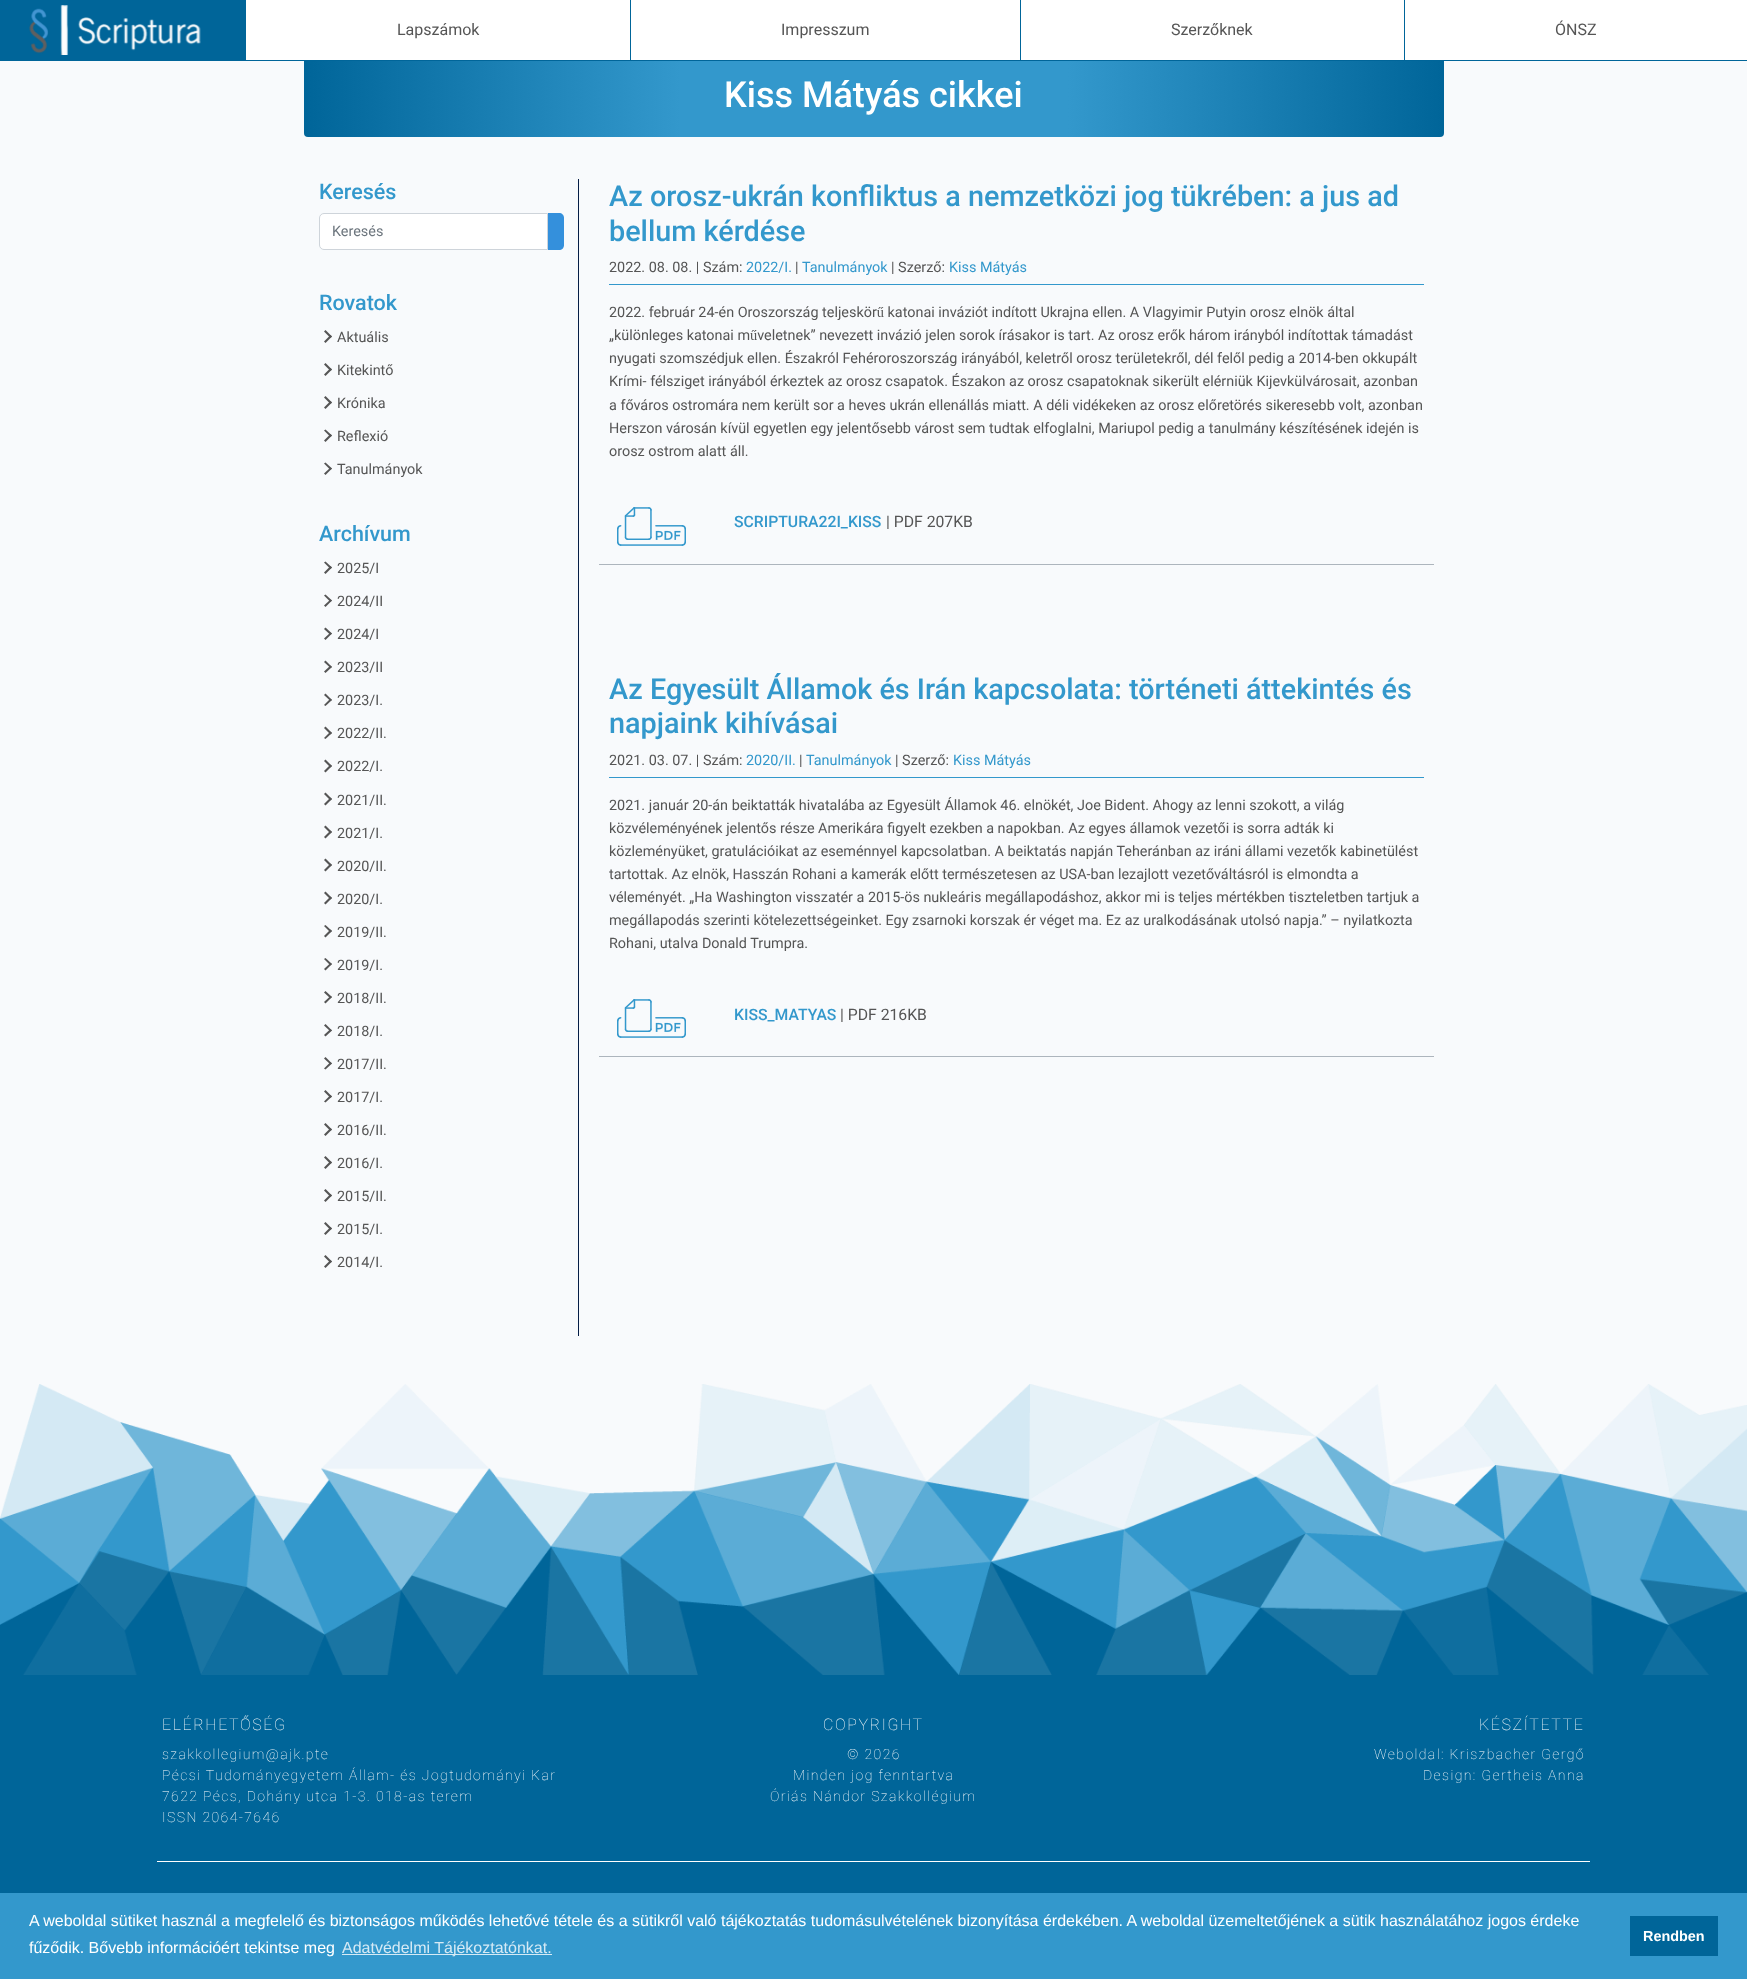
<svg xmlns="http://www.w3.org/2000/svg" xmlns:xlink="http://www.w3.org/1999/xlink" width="1747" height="1979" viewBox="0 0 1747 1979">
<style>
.cls-1{font:16px Roboto;fill:#555555}
.cls-2{font:500 36px Roboto;fill:#ffffff}
.cls-3{font:500 21.5px Roboto;fill:#3398cc}
.cls-4{font:14.4px Roboto;fill:#6c757d}
.cls-5{font:14.4px Roboto;fill:#555555}
.cls-6{font:500 28.8px Roboto;fill:#3398cc}
.cls-7{font:14.4px Roboto;fill:#3398cc}
.cls-8{font:500 15.75px Roboto;fill:#3398cc}
.cls-9{font:15.75px Roboto;fill:#555555}
.cls-10{font:100 16px Roboto;letter-spacing:1.6px;fill:#ffffff}
.cls-11{font:100 14px Roboto;letter-spacing:1.4px;fill:#ffffff}
.cls-12{font:16px Liberation Sans;fill:#ffffff}
.cls-13{font:16px Liberation Sans;fill:#d6eaf5}
.cls-14{font:bold 14.4px Liberation Sans;fill:#ffffff}
</style>
<defs>
<linearGradient id="g1" gradientUnits="userSpaceOnUse" x1="304" y1="96" x2="1444" y2="95"><stop offset="0" stop-color="#006599"/><stop offset="0.33" stop-color="#3398cc"/><stop offset="0.67" stop-color="#3398cc"/><stop offset="1" stop-color="#006599"/></linearGradient>
</defs>
<rect width="100%" height="100%" fill="#f8fafc"/>
<rect fill="url(#g1)" x="304" y="54" width="1140" height="83" rx="4"/>
<rect fill="#ffffff" x="246" y="0" width="1501" height="60"/>
<rect fill="#006599" x="0" y="60" width="1747" height="1"/>
<rect fill="#006599" x="0" y="0" width="246" height="60"/>
<image xlink:href="image0.png" x="29" y="5" width="172" height="50"/>
<rect fill="#006599" x="630" y="0" width="1" height="60"/>
<rect fill="#006599" x="1020" y="0" width="1" height="60"/>
<rect fill="#006599" x="1404" y="0" width="1" height="60"/>
<path fill="#ffffff" stroke="#ced4da" d="M324 213.5H547.5V249.5H324C321.5 249.5 319.5 247.5 319.5 245V218C319.5 215.5 321.5 213.5 324 213.5Z"/>
<path fill="#3490dc" d="M548 213H559C562 213 564 215 564 218V245C564 248 562 250 559 250H548Z"/>
<rect fill="#051d46" x="578" y="179" width="1" height="1157"/>
<path fill="#555555" d="M325.5 330L332 336.5L330.5 338L324 331.5Z"/>
<path fill="#555555" d="M330.5 335L332 336.5L325.5 343L324 341.5Z"/>
<path fill="#555555" d="M325.5 363L332 369.5L330.5 371L324 364.5Z"/>
<path fill="#555555" d="M330.5 368L332 369.5L325.5 376L324 374.5Z"/>
<path fill="#555555" d="M325.5 396L332 402.5L330.5 404L324 397.5Z"/>
<path fill="#555555" d="M330.5 401L332 402.5L325.5 409L324 407.5Z"/>
<path fill="#555555" d="M325.5 429.5L332 435.5L330.5 437L324 430.5Z"/>
<path fill="#555555" d="M330.5 434L332 435.5L325.5 442L324 440.5Z"/>
<path fill="#555555" d="M325.5 462.5L332 468.5L330.5 470L324 463.5Z"/>
<path fill="#555555" d="M330.5 467.5L332 468.5L325.5 475L324 473.5Z"/>
<path fill="#555555" d="M325.5 561.5L332 567.5L330.5 569L324 562.5Z"/>
<path fill="#555555" d="M330.5 566L332 567.5L325.5 574L324 572.5Z"/>
<path fill="#555555" d="M325.5 594.5L332 600.5L330.5 602L324 595.5Z"/>
<path fill="#555555" d="M330.5 599.5L332 600.5L325.5 607L324 605.5Z"/>
<path fill="#555555" d="M325.5 627.5L332 633.5L330.5 635L324 629Z"/>
<path fill="#555555" d="M330.5 632.5L332 633.5L325.5 640L324 638.5Z"/>
<path fill="#555555" d="M325.5 660.5L332 667L330.5 668L324 662Z"/>
<path fill="#555555" d="M330.5 665.5L332 667L325.5 673L324 671.5Z"/>
<path fill="#555555" d="M325.5 693.5L332 700L330.5 701L324 695Z"/>
<path fill="#555555" d="M330.5 698.5L332 700L325.5 706L324 705Z"/>
<path fill="#555555" d="M325.5 726.5L332 733L330.5 734.5L324 728Z"/>
<path fill="#555555" d="M330.5 731.5L332 733L325.5 739L324 738Z"/>
<path fill="#555555" d="M325.5 759.5L332 766L330.5 767.5L324 761Z"/>
<path fill="#555555" d="M330.5 764.5L332 766L325.5 772.5L324 771Z"/>
<path fill="#555555" d="M325.5 792.5L332 799L330.5 800.5L324 794Z"/>
<path fill="#555555" d="M330.5 797.5L332 799L325.5 805.5L324 804Z"/>
<path fill="#555555" d="M325.5 825.5L332 832L330.5 833.5L324 827Z"/>
<path fill="#555555" d="M330.5 830.5L332 832L325.5 838.5L324 837Z"/>
<path fill="#555555" d="M325.5 858.5L332 865L330.5 866.5L324 860Z"/>
<path fill="#555555" d="M330.5 863.5L332 865L325.5 871.5L324 870Z"/>
<path fill="#555555" d="M325.5 891.5L332 898L330.5 899.5L324 893Z"/>
<path fill="#555555" d="M330.5 896.5L332 898L325.5 904.5L324 903Z"/>
<path fill="#555555" d="M325.5 925L332 931L330.5 932.5L324 926Z"/>
<path fill="#555555" d="M330.5 929.5L332 931L325.5 937.5L324 936Z"/>
<path fill="#555555" d="M325.5 958L332 964L330.5 965.5L324 959Z"/>
<path fill="#555555" d="M330.5 963L332 964L325.5 970.5L324 969Z"/>
<path fill="#555555" d="M325.5 991L332 997L330.5 998.5L324 992.5Z"/>
<path fill="#555555" d="M330.5 996L332 997L325.5 1003.5L324 1002Z"/>
<path fill="#555555" d="M325.5 1024L332 1030.5L330.5 1031.5L324 1025.5Z"/>
<path fill="#555555" d="M330.5 1029L332 1030.5L325.5 1036.5L324 1035Z"/>
<path fill="#555555" d="M325.5 1057L332 1063.5L330.5 1064.5L324 1058.5Z"/>
<path fill="#555555" d="M330.5 1062L332 1063.5L325.5 1069.5L324 1068.5Z"/>
<path fill="#555555" d="M325.5 1090L332 1096.5L330.5 1098L324 1091.5Z"/>
<path fill="#555555" d="M330.5 1095L332 1096.5L325.5 1102.5L324 1101.5Z"/>
<path fill="#555555" d="M325.5 1123L332 1129.5L330.5 1131L324 1124.5Z"/>
<path fill="#555555" d="M330.5 1128L332 1129.5L325.5 1136L324 1134.5Z"/>
<path fill="#555555" d="M325.5 1156L332 1162.5L330.5 1164L324 1157.5Z"/>
<path fill="#555555" d="M330.5 1161L332 1162.5L325.5 1169L324 1167.5Z"/>
<path fill="#555555" d="M325.5 1189L332 1195.5L330.5 1197L324 1190.5Z"/>
<path fill="#555555" d="M330.5 1194L332 1195.5L325.5 1202L324 1200.5Z"/>
<path fill="#555555" d="M325.5 1222L332 1228.5L330.5 1230L324 1223.5Z"/>
<path fill="#555555" d="M330.5 1227L332 1228.5L325.5 1235L324 1233.5Z"/>
<path fill="#555555" d="M325.5 1255L332 1261.5L330.5 1263L324 1256.5Z"/>
<path fill="#555555" d="M330.5 1260L332 1261.5L325.5 1268L324 1266.5Z"/>
<rect fill="#3398cc" x="609" y="284" width="815" height="1"/>
<rect fill="#adb5bd" x="599" y="564" width="835" height="1"/>
<image xlink:href="image1.png" x="617" y="507" width="69" height="39"/>
<rect fill="#3398cc" x="609" y="777" width="815" height="1"/>
<rect fill="#adb5bd" x="599" y="1056" width="835" height="1"/>
<image xlink:href="image1.png" x="617" y="999" width="69" height="39"/>
<image xlink:href="image2.png" x="0" y="1384" width="1747" height="291"/>
<rect fill="#006599" x="0" y="1675" width="1747" height="218"/>
<rect fill="#ffffff" x="157" y="1861" width="1433" height="1"/>
<rect fill="#3398cc" x="0" y="1893" width="1747" height="86"/>
<rect fill="#d6eaf5" x="342" y="1954" width="210" height="1"/>
<rect fill="#006599" x="1630" y="1916" width="88" height="40"/>
<text class="cls-1" x="397" y="35">Lapszámok</text>
<text class="cls-1" x="781" y="35">Impresszum</text>
<text class="cls-1" x="1171" y="35">Szerzőknek</text>
<text class="cls-1" x="1555" y="35">ÓNSZ</text>
<text class="cls-2" x="724" y="107">Kiss Mátyás cikkei</text>
<text class="cls-3" x="319" y="199">Keresés</text>
<text class="cls-4" x="332" y="236">Keresés</text>
<text class="cls-3" x="319" y="310">Rovatok</text>
<text class="cls-5" x="337" y="342">Aktuális</text>
<text class="cls-5" x="337" y="375">Kitekintő</text>
<text class="cls-5" x="337" y="408">Krónika</text>
<text class="cls-5" x="337" y="441">Reflexió</text>
<text class="cls-5" x="337" y="474">Tanulmányok</text>
<text class="cls-3" x="319" y="541">Archívum</text>
<text class="cls-5" x="337" y="573">2025/I</text>
<text class="cls-5" x="337" y="606">2024/II</text>
<text class="cls-5" x="337" y="639">2024/I</text>
<text class="cls-5" x="337" y="672">2023/II</text>
<text class="cls-5" x="337" y="705">2023/I.</text>
<text class="cls-5" x="337" y="738">2022/II.</text>
<text class="cls-5" x="337" y="771">2022/I.</text>
<text class="cls-5" x="337" y="805">2021/II.</text>
<text class="cls-5" x="337" y="838">2021/I.</text>
<text class="cls-5" x="337" y="871">2020/II.</text>
<text class="cls-5" x="337" y="904">2020/I.</text>
<text class="cls-5" x="337" y="937">2019/II.</text>
<text class="cls-5" x="337" y="970">2019/I.</text>
<text class="cls-5" x="337" y="1003">2018/II.</text>
<text class="cls-5" x="337" y="1036">2018/I.</text>
<text class="cls-5" x="337" y="1069">2017/II.</text>
<text class="cls-5" x="337" y="1102">2017/I.</text>
<text class="cls-5" x="337" y="1135">2016/II.</text>
<text class="cls-5" x="337" y="1168">2016/I.</text>
<text class="cls-5" x="337" y="1201">2015/II.</text>
<text class="cls-5" x="337" y="1234">2015/I.</text>
<text class="cls-5" x="337" y="1267">2014/I.</text>
<text class="cls-6"><tspan x="609" y="206">Az orosz-ukrán konfliktus a nemzetközi jog tükrében: a jus ad</tspan><tspan x="609" y="241">bellum kérdése</tspan></text>
<text class="cls-5" x="609" y="272">2022. 08. 08. | Szám:</text>
<text class="cls-7" x="746" y="272">2022/I.</text>
<text class="cls-5" x="795" y="272">|</text>
<text class="cls-7" x="802" y="272">Tanulmányok</text>
<text class="cls-5" x="891" y="272">| Szerző:</text>
<text class="cls-7" x="949" y="272">Kiss Mátyás</text>
<text class="cls-5"><tspan x="609" y="317">2022. február 24-én Oroszország teljeskörű katonai inváziót indított Ukrajna ellen. A Vlagyimir Putyin orosz elnök által</tspan><tspan x="609" y="340">„különleges katonai műveletnek” nevezett invázió jelen sorok írásakor is tart. Az orosz erők három irányból indítottak támadást</tspan><tspan x="609" y="363">nyugati szomszédjuk ellen. Északról Fehéroroszország irányából, keletről orosz területekről, dél felől pedig a 2014-ben okkupált</tspan><tspan x="609" y="386">Krími- félsziget irányából érkeztek az orosz csapatok. Északon az orosz csapatoknak sikerült elérniük Kijevkülvárosait, azonban</tspan><tspan x="609" y="410">a főváros ostromára nem került sor a heves ukrán ellenállás miatt. A déli vidékeken az orosz előretörés sikeresebb volt, azonban</tspan><tspan x="609" y="433">Herszon városán kívül egyetlen egy jelentősebb várost sem tudtak elfoglalni, Mariupol pedig a tanulmány készítésének idején is</tspan><tspan x="609" y="456">orosz ostrom alatt áll.</tspan></text>
<text class="cls-8" x="734" y="527">SCRIPTURA22I_KISS</text>
<text class="cls-9" x="886" y="527">| PDF 207KB</text>
<text class="cls-6"><tspan x="609" y="699">Az Egyesült Államok és Irán kapcsolata: történeti áttekintés és</tspan><tspan x="609" y="733">napjaink kihívásai</tspan></text>
<text class="cls-5" x="609" y="765">2021. 03. 07. | Szám:</text>
<text class="cls-7" x="746" y="765">2020/II.</text>
<text class="cls-5" x="799" y="765">|</text>
<text class="cls-7" x="806" y="765">Tanulmányok</text>
<text class="cls-5" x="895" y="765">| Szerző:</text>
<text class="cls-7" x="953" y="765">Kiss Mátyás</text>
<text class="cls-5"><tspan x="609" y="810">2021. január 20-án beiktatták hivatalába az Egyesült Államok 46. elnökét, Joe Bident. Ahogy az lenni szokott, a világ</tspan><tspan x="609" y="833">közvéleményének jelentős része Amerikára figyelt ezekben a napokban. Az egyes államok vezetői is sorra adták ki</tspan><tspan x="609" y="856">közleményüket, gratulációikat az eseménnyel kapcsolatban. A beiktatás napján Teheránban az iráni állami vezetők kabinetülést</tspan><tspan x="609" y="879">tartottak. Az elnök, Hasszán Rohani a kamerák előtt természetesen az USA-ban lezajlott vezetőváltásról is elmondta a</tspan><tspan x="609" y="902">véleményét. „Ha Washington visszatér a 2015-ös nukleáris megállapodáshoz, akkor mi is teljes mértékben tiszteletben tartjuk a</tspan><tspan x="609" y="925">megállapodás szerinti kötelezettségeinket. Egy zsarnoki korszak ér véget ma. Ez az uralkodásának utolsó napja.” – nyilatkozta</tspan><tspan x="609" y="948">Rohani, utalva Donald Trumpra.</tspan></text>
<text class="cls-8" x="734" y="1020">KISS_MATYAS</text>
<text class="cls-9" x="840" y="1020">| PDF 216KB</text>
<text class="cls-10" x="162" y="1730">ELÉRHETŐSÉG</text>
<text class="cls-11"><tspan x="162" y="1759">szakkollegium@ajk.pte</tspan><tspan x="162" y="1780">Pécsi Tudományegyetem Állam- és Jogtudományi Kar</tspan><tspan x="162" y="1801">7622 Pécs, Dohány utca 1-3. 018-as terem</tspan><tspan x="162" y="1822">ISSN 2064-7646</tspan></text>
<text class="cls-10" x="823" y="1730">COPYRIGHT</text>
<text class="cls-11" x="847" y="1759">© 2026</text>
<text class="cls-11" x="793" y="1780">Minden jog fenntartva</text>
<text class="cls-11" x="770" y="1801">Óriás Nándor Szakkollégium</text>
<text class="cls-10" x="1479" y="1730">KÉSZÍTETTE</text>
<text class="cls-11" x="1374" y="1759">Weboldal: Kriszbacher Gergő</text>
<text class="cls-11" x="1423" y="1780">Design: Gertheis Anna</text>
<text class="cls-12"><tspan x="29" y="1926">A weboldal sütiket használ a megfelelő és biztonságos működés lehetővé tétele és a sütikről való tájékoztatás tudomásulvételének bizonyítása érdekében. A weboldal üzemeltetőjének a sütik használatához jogos érdeke</tspan><tspan x="29" y="1953">fűződik. Bővebb információért tekintse meg</tspan></text>
<text class="cls-13" x="342" y="1953">Adatvédelmi Tájékoztatónkat.</text>
<text class="cls-14" x="1643" y="1941">Rendben</text>
</svg>
